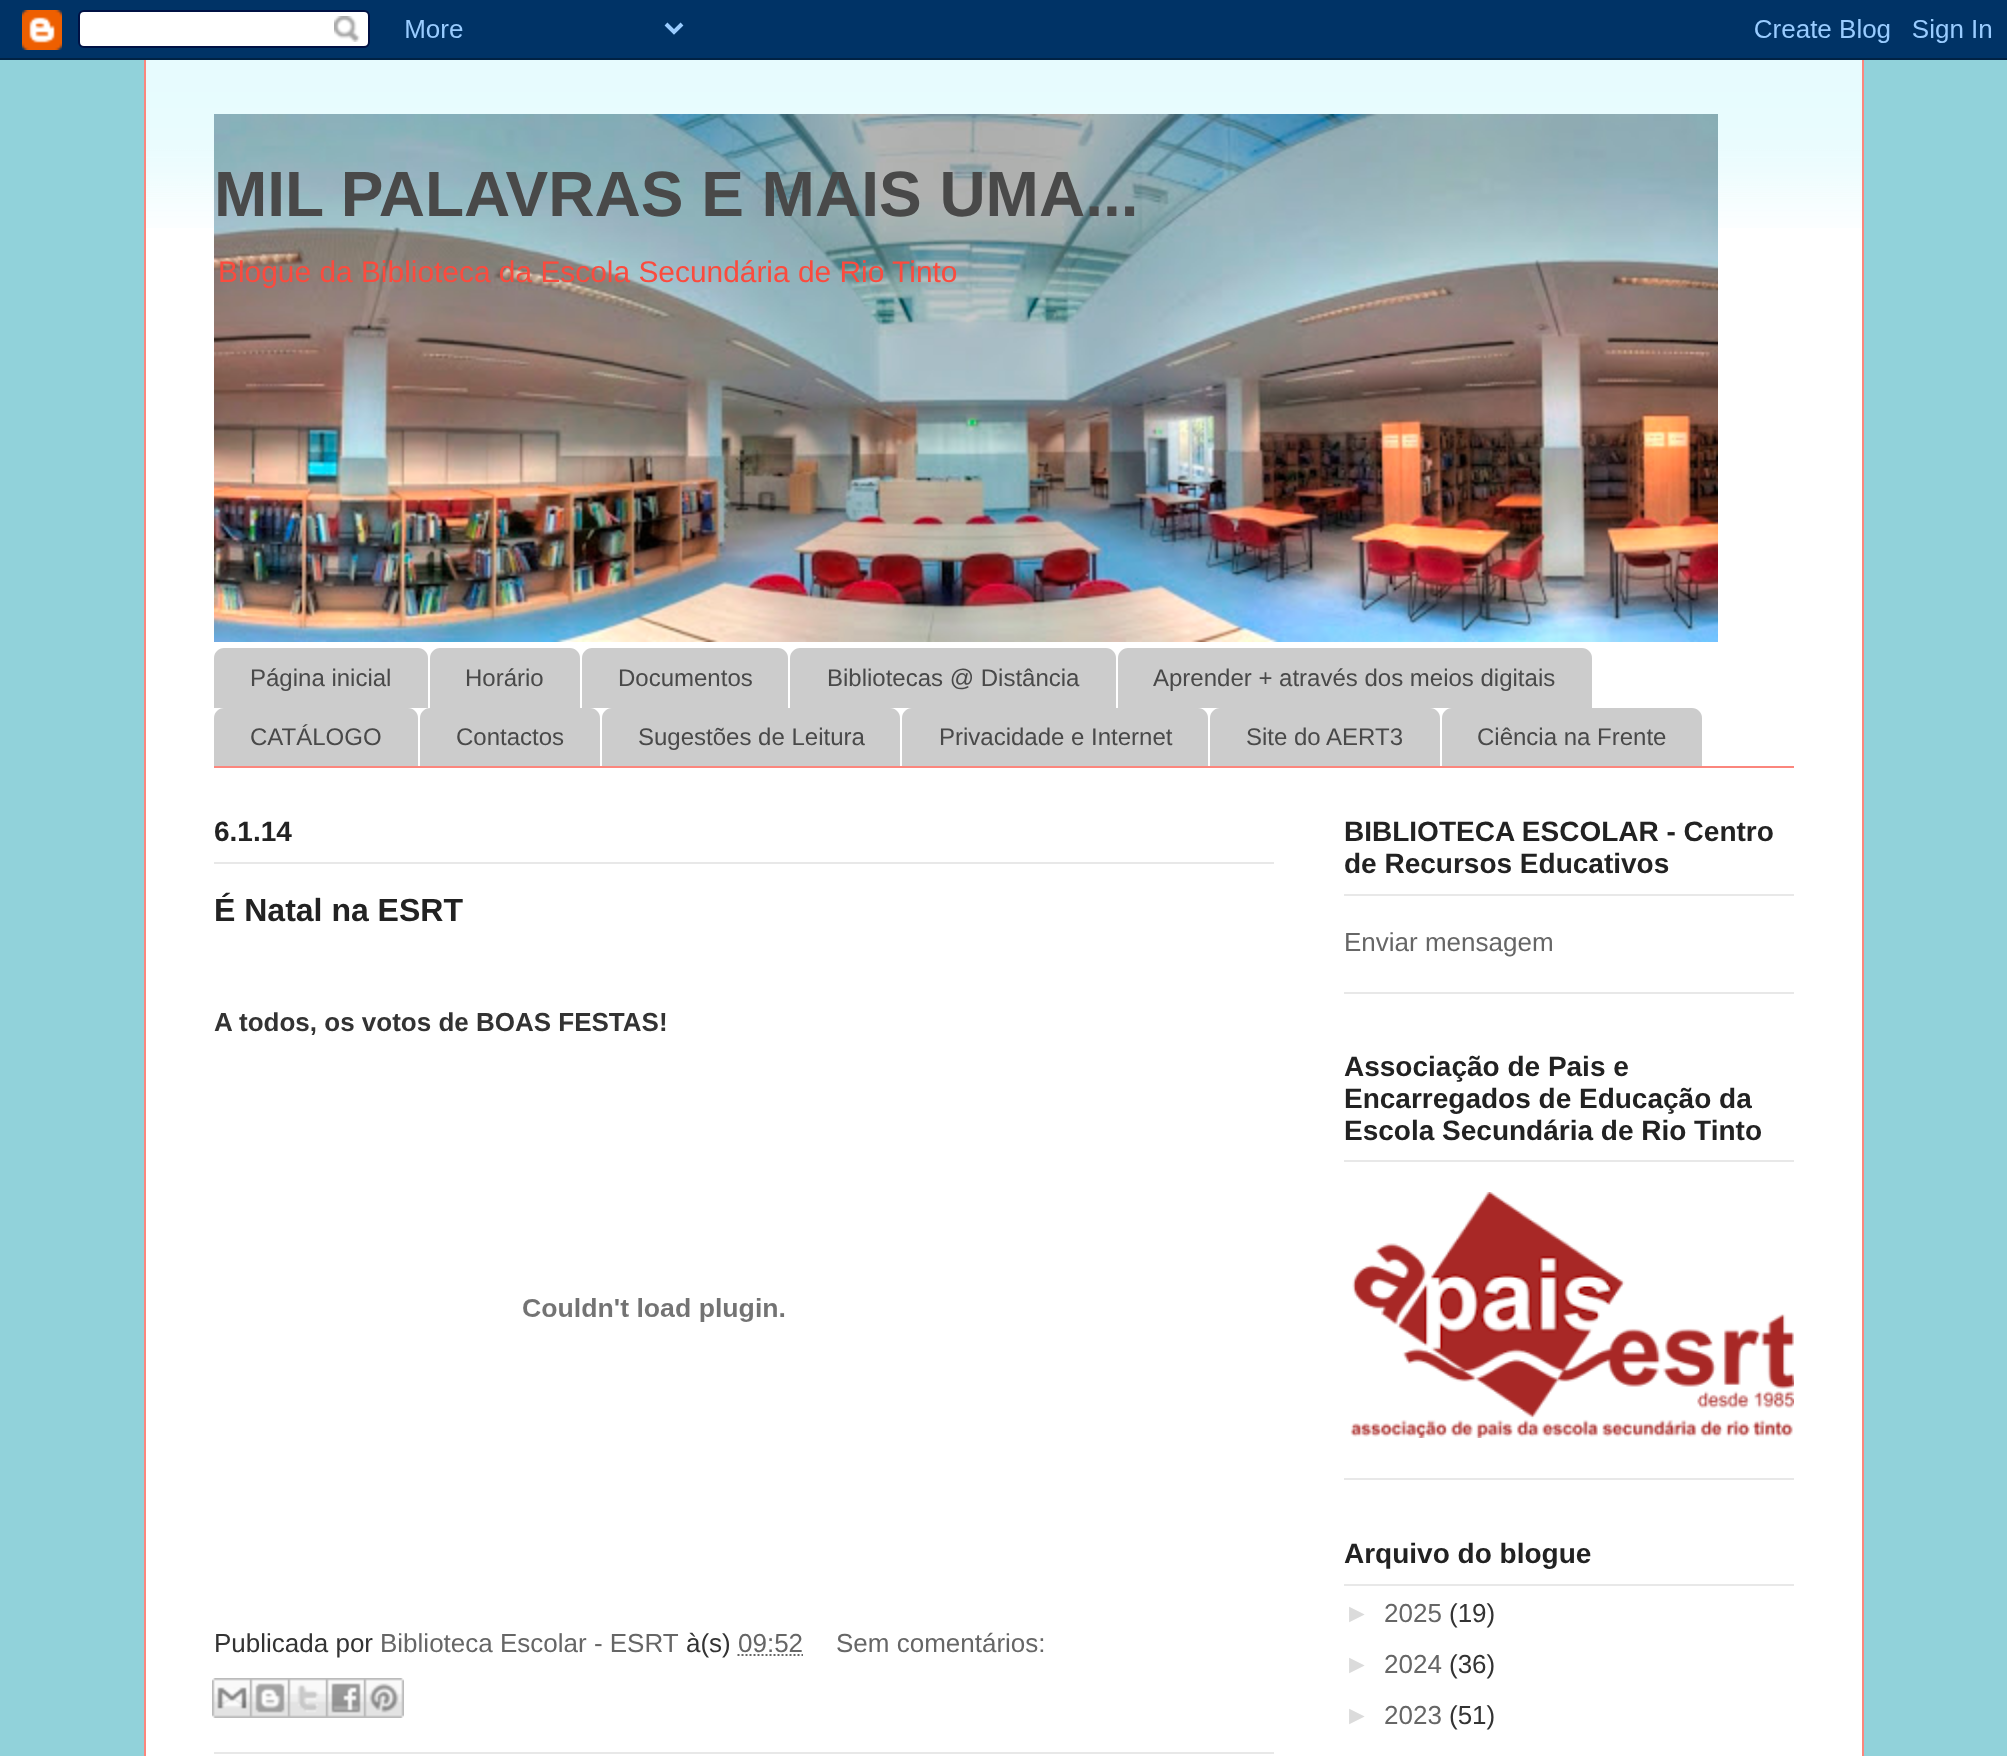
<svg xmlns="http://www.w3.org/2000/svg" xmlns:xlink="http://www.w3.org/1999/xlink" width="2007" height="1756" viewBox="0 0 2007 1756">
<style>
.cls-1{font:bold 64px Liberation Sans;fill:#494949}
.cls-2{font:29.9px Liberation Sans;fill:#fb4b3e}
.cls-3{font:24px Liberation Sans;fill:#494949}
.cls-4{font:bold 28px Liberation Sans;fill:#222222}
.cls-5{font:bold 32px Liberation Sans;fill:#222222}
.cls-6{font:bold 26px Liberation Sans;fill:#333333}
.cls-7{font:26px Liberation Sans;fill:#333333}
.cls-8{font:26px Liberation Sans;fill:#666666}
.cls-9{font:26px Liberation Sans;fill:#dbdbdb}
</style>
<rect width="100%" height="100%" fill="#91d2da"/>
<image xlink:href="image0.png" x="0" y="0" width="2007" height="60"/>
<rect fill="#ffffff" x="146" y="60" width="1716" height="1696"/>
<image xlink:href="image1.png" x="146" y="60" width="1716" height="168"/>
<rect fill="#fb867d" x="1862" y="60" width="2" height="1696"/>
<rect fill="#fb867d" x="144" y="60" width="2" height="1696"/>
<image xlink:href="image2.png" x="214" y="114" width="1504" height="528"/>
<rect fill="#fb867d" x="214" y="766" width="1580" height="2"/>
<path fill="#cccccc" d="M224 648H418C423.5 648 428 652.5 428 658V708H214V658C214 652.5 218.5 648 224 648Z"/>
<path fill="#cccccc" d="M440 648H570C575.5 648 580 652.5 580 658V708H430V658C430 652.5 434.5 648 440 648Z"/>
<path fill="#cccccc" d="M592 648H778C783.5 648 788 652.5 788 658V708H582V658C582 652.5 586.5 648 592 648Z"/>
<path fill="#cccccc" d="M800 648H1106C1111.5 648 1116 652.5 1116 658V708H790V658C790 652.5 794.5 648 800 648Z"/>
<path fill="#cccccc" d="M1128 648H1582C1587.5 648 1592 652.5 1592 658V708H1118V658C1118 652.5 1122.5 648 1128 648Z"/>
<path fill="#cccccc" d="M224 708H408C413.5 708 418 712.5 418 718V766H214V718C214 712.5 218.5 708 224 708Z"/>
<path fill="#cccccc" d="M430 708H590C595.5 708 600 712.5 600 718V766H420V718C420 712.5 424.5 708 430 708Z"/>
<path fill="#cccccc" d="M612 708H890C895.5 708 900 712.5 900 718V766H602V718C602 712.5 606.5 708 612 708Z"/>
<path fill="#cccccc" d="M912 708H1198C1203.5 708 1208 712.5 1208 718V766H902V718C902 712.5 906.5 708 912 708Z"/>
<path fill="#cccccc" d="M1220 708H1430C1435.5 708 1440 712.5 1440 718V766H1210V718C1210 712.5 1214.5 708 1220 708Z"/>
<path fill="#cccccc" d="M1452 708H1692C1697.5 708 1702 712.5 1702 718V766H1442V718C1442 712.5 1446.5 708 1452 708Z"/>
<rect fill="#e8e8e8" x="214" y="862" width="1060" height="2"/>
<rect fill="#e8e8e8" x="214" y="1752" width="1060" height="2"/>
<image xlink:href="image3.png" x="523" y="1298" width="262" height="24"/>
<path fill="none" stroke="#666666" stroke-width="2" stroke-dasharray="2 2" d="M737.5 1655H803"/>
<image xlink:href="image4.png" x="212" y="1678" width="38" height="40"/>
<image xlink:href="image5.png" x="250" y="1678" width="38" height="40"/>
<image xlink:href="image6.png" x="288" y="1678" width="38" height="40"/>
<image xlink:href="image7.png" x="326" y="1678" width="38" height="40"/>
<image xlink:href="image8.png" x="364" y="1678" width="40" height="40"/>
<rect fill="#e8e8e8" x="1344" y="992" width="450" height="2"/>
<rect fill="#e8e8e8" x="1344" y="894" width="450" height="2"/>
<rect fill="#e8e8e8" x="1344" y="1478" width="450" height="2"/>
<rect fill="#e8e8e8" x="1344" y="1160" width="450" height="2"/>
<image xlink:href="image9.png" x="1350" y="1192" width="444" height="246"/>
<rect fill="#e8e8e8" x="1344" y="1584" width="450" height="2"/>
<text class="cls-1" x="214" y="216">MIL PALAVRAS E MAIS UMA...</text>
<text class="cls-2" x="218" y="282">Blogue da Biblioteca da Escola Secundária de Rio Tinto</text>
<text class="cls-3" x="250" y="686">Página inicial</text>
<text class="cls-3" x="465" y="686">Horário</text>
<text class="cls-3" x="618" y="686">Documentos</text>
<text class="cls-3" x="827" y="686">Bibliotecas @ Distância</text>
<text class="cls-3" x="1153" y="686">Aprender + através dos meios digitais</text>
<text class="cls-3" x="250" y="745">CATÁLOGO</text>
<text class="cls-3" x="456" y="745">Contactos</text>
<text class="cls-3" x="638" y="745">Sugestões de Leitura</text>
<text class="cls-3" x="939" y="745">Privacidade e Internet</text>
<text class="cls-3" x="1246" y="745">Site do AERT3</text>
<text class="cls-3" x="1477" y="745">Ciência na Frente</text>
<text class="cls-4" x="214" y="841">6.1.14</text>
<text class="cls-5" x="214" y="921">É Natal na ESRT</text>
<text class="cls-6" x="214" y="1031">A todos, os votos de BOAS FESTAS!</text>
<text class="cls-7" x="214" y="1652">Publicada por</text>
<text class="cls-8" x="380" y="1652">Biblioteca Escolar - ESRT</text>
<text class="cls-7" x="686" y="1652">à(s)</text>
<text class="cls-8" x="738" y="1652">09:52</text>
<text class="cls-8" x="836" y="1652">Sem comentários:</text>
<text class="cls-4"><tspan x="1344" y="841">BIBLIOTECA ESCOLAR - Centro</tspan><tspan x="1344" y="873">de Recursos Educativos</tspan></text>
<text class="cls-8" x="1344" y="951">Enviar mensagem</text>
<text class="cls-4"><tspan x="1344" y="1076">Associação de Pais e</tspan><tspan x="1344" y="1108">Encarregados de Educação da</tspan><tspan x="1344" y="1140">Escola Secundária de Rio Tinto</tspan></text>
<text class="cls-4" x="1344" y="1563">Arquivo do blogue</text>
<text class="cls-9" x="1344" y="1622">►</text>
<text class="cls-8" x="1384" y="1622">2025</text>
<text class="cls-7" x="1449" y="1622">(19)</text>
<text class="cls-9" x="1344" y="1673">►</text>
<text class="cls-8" x="1384" y="1673">2024</text>
<text class="cls-7" x="1449" y="1673">(36)</text>
<text class="cls-9" x="1344" y="1724">►</text>
<text class="cls-8" x="1384" y="1724">2023</text>
<text class="cls-7" x="1449" y="1724">(51)</text>
</svg>
